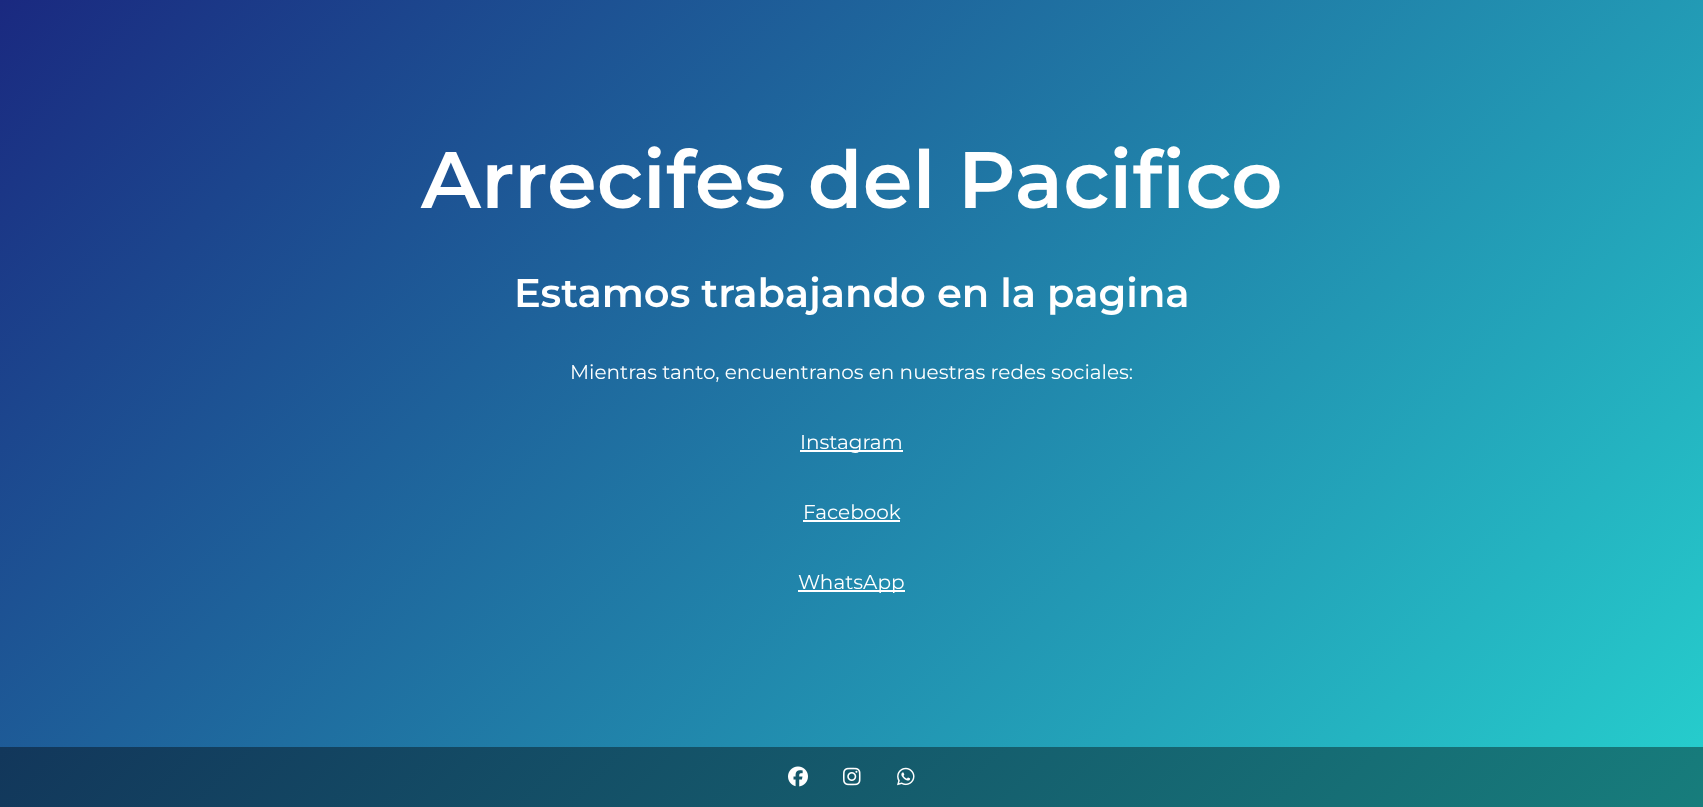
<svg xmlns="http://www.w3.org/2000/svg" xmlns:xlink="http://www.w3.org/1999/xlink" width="1703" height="807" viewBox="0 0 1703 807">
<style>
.cls-1{font:600 80px Montserrat;fill:#ffffff}
.cls-2{font:600 40px Montserrat;fill:#ffffff}
.cls-3{font:20px Montserrat;fill:#ffffff}
</style>
<defs>
<linearGradient id="g1" gradientUnits="userSpaceOnUse" x1="224" y1="-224" x2="1479" y2="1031"><stop offset="0" stop-color="#1a2980"/><stop offset="1" stop-color="#26d0ce"/></linearGradient>
<linearGradient id="g2" gradientUnits="userSpaceOnUse" x1="224" y1="-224" x2="1479" y2="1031"><stop offset="0" stop-color="#10194d"/><stop offset="1" stop-color="#177d7c"/></linearGradient>
</defs>
<rect width="100%" height="100%" fill="#ffffff"/>
<rect fill="url(#g1)" x="0" y="0" width="1703" height="747"/>
<rect fill="url(#g2)" x="0" y="747" width="1703" height="60"/>
<rect fill="#ffffff" x="800" y="450" width="103" height="2"/>
<rect fill="#ffffff" x="803" y="520" width="97" height="2"/>
<rect fill="#ffffff" x="798" y="590" width="107" height="2"/>
<image xlink:href="image0.png" x="788" y="766" width="20" height="21"/>
<image xlink:href="image1.png" x="843" y="767" width="18" height="19"/>
<image xlink:href="image2.png" x="897" y="767" width="18" height="19"/>
<text class="cls-1" x="421" y="208">Arrecifes del Pacifico</text>
<text class="cls-2" x="514" y="307">Estamos trabajando en la pagina</text>
<text class="cls-3" x="570" y="379">Mientras tanto, encuentranos en nuestras redes sociales:</text>
<text class="cls-3" x="800" y="449">Instagram</text>
<text class="cls-3" x="803" y="519">Facebook</text>
<text class="cls-3" x="798" y="589">WhatsApp</text>
</svg>
